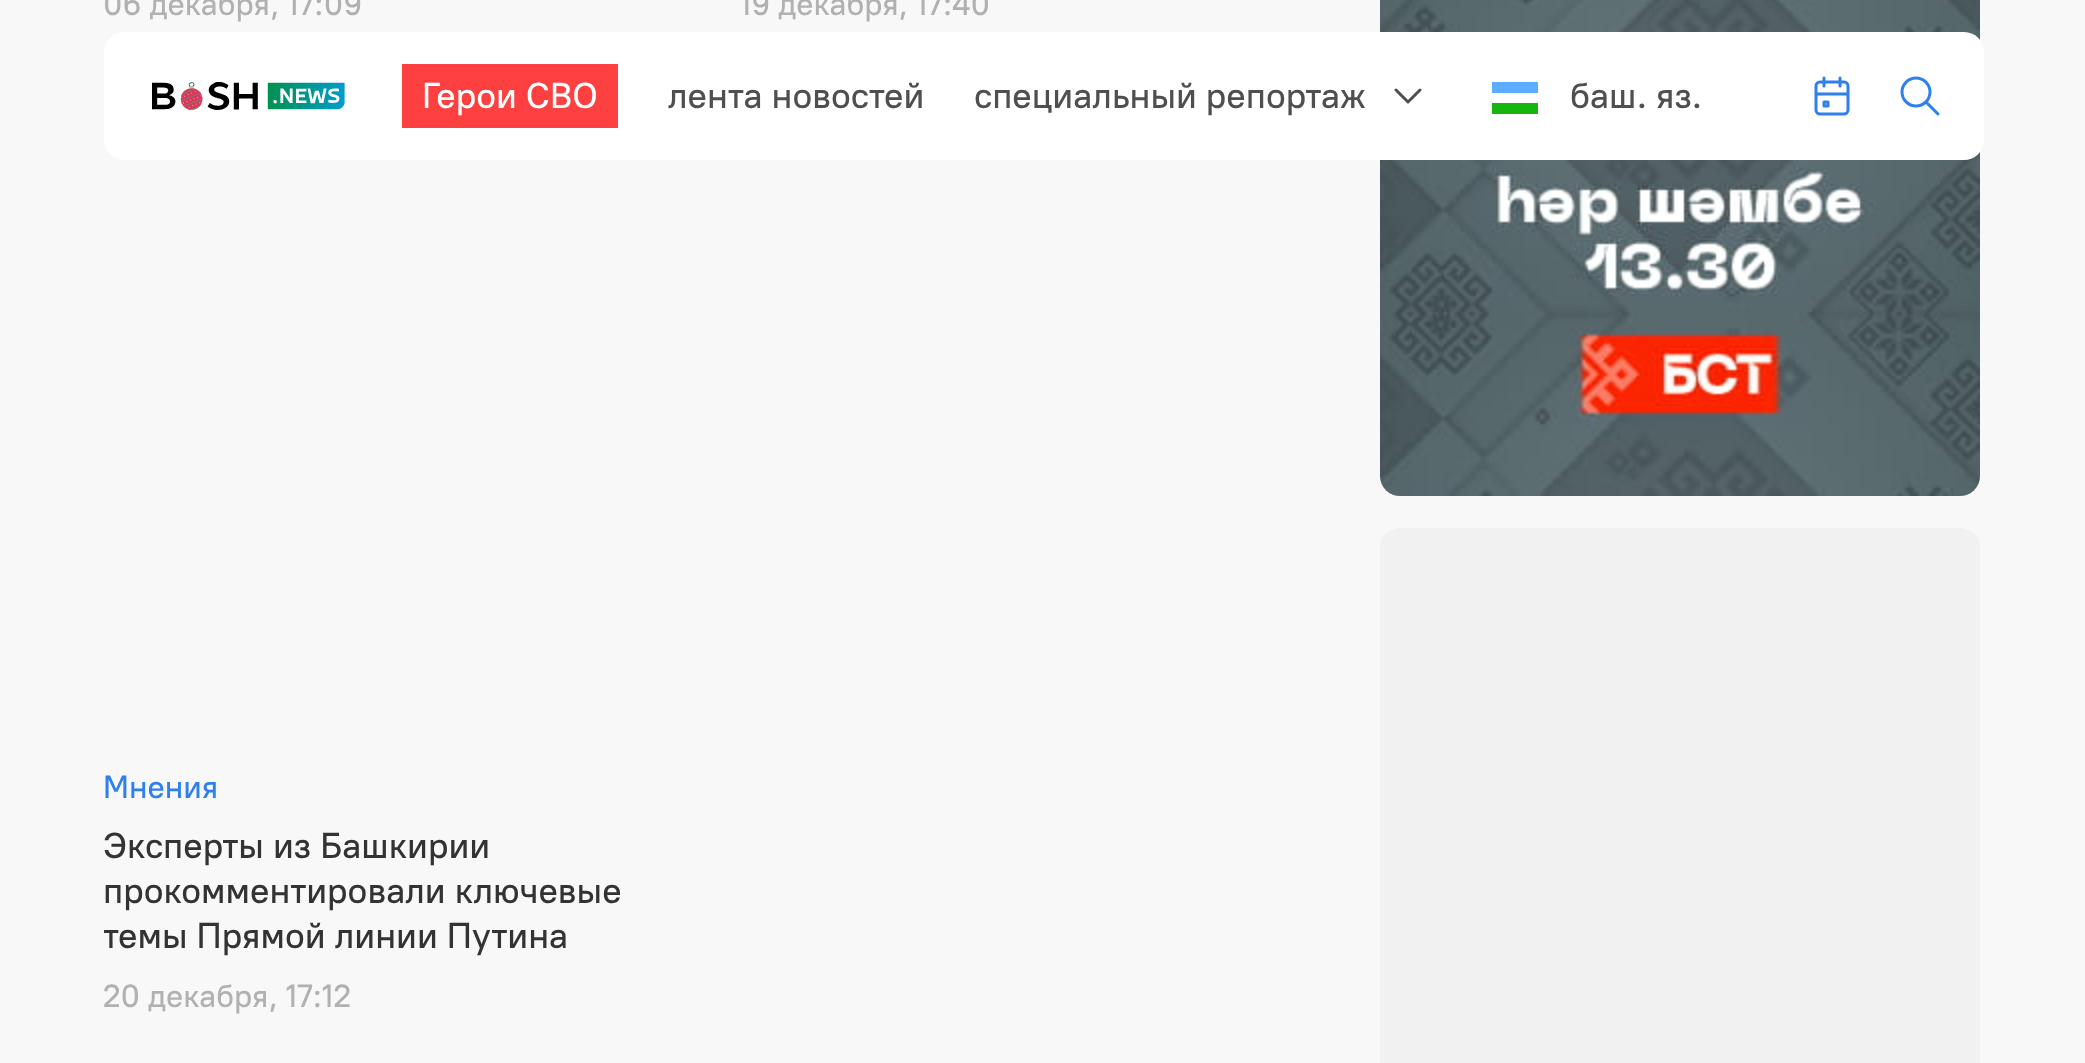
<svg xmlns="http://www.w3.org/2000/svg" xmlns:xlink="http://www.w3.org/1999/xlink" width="2085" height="1063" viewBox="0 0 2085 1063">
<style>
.cls-1{font:500 32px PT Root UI;fill:#b1b1b1}
.cls-2{font:500 32px PT Root UI;fill:#2f80ed}
.cls-3{font:500 36px PT Root UI;fill:#333333}
.cls-4{font:500 36px PT Root UI;fill:#ffffff}
.cls-5{font:500 36px PT Root UI;fill:#4f4f4f}
</style>
<defs>
<clipPath id="clip1"><rect x="104" y="824" width="604" height="134"/></clipPath>
</defs>
<rect width="100%" height="100%" fill="#f8f8f8"/>
<image xlink:href="image0.png" x="1380" y="0" width="600" height="496"/>
<rect fill="#f1f1f1" x="1380" y="528" width="600" height="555" rx="20"/>
<rect fill="#ffffff" x="104" y="32" width="1880" height="128" rx="20"/>
<image xlink:href="image1.png" x="152" y="82" width="193" height="28"/>
<rect fill="#ff4040" x="402" y="64" width="216" height="64"/>
<image xlink:href="image2.png" x="1394" y="88" width="28" height="16"/>
<rect fill="#5cadff" x="1492" y="82" width="46" height="11"/>
<rect fill="#16b50f" x="1492" y="103" width="46" height="11"/>
<image xlink:href="image3.png" x="1814" y="76" width="36" height="40"/>
<image xlink:href="image4.png" x="1900" y="76" width="40" height="40"/>
<text class="cls-1" x="103" y="15">06 декабря, 17:09</text>
<text class="cls-1" x="740" y="15">19 декабря, 17:40</text>
<text class="cls-2" x="103" y="798">Мнения</text>
<text class="cls-3"><tspan x="103" y="858">Эксперты из Башкирии</tspan><tspan x="103" y="903">прокомментировали ключевые</tspan></text>
<g clip-path="url(#clip1)">
<text class="cls-3" x="103" y="948">темы Прямой линии Путина</text>
</g>
<text class="cls-1" x="103" y="1007">20 декабря, 17:12</text>
<text class="cls-4" x="422" y="108">Герои СВО</text>
<text class="cls-5" x="668" y="108">лента новостей</text>
<text class="cls-5" x="974" y="108">специальный репортаж</text>
<text class="cls-5" x="1570" y="108">баш. яз.</text>
</svg>
